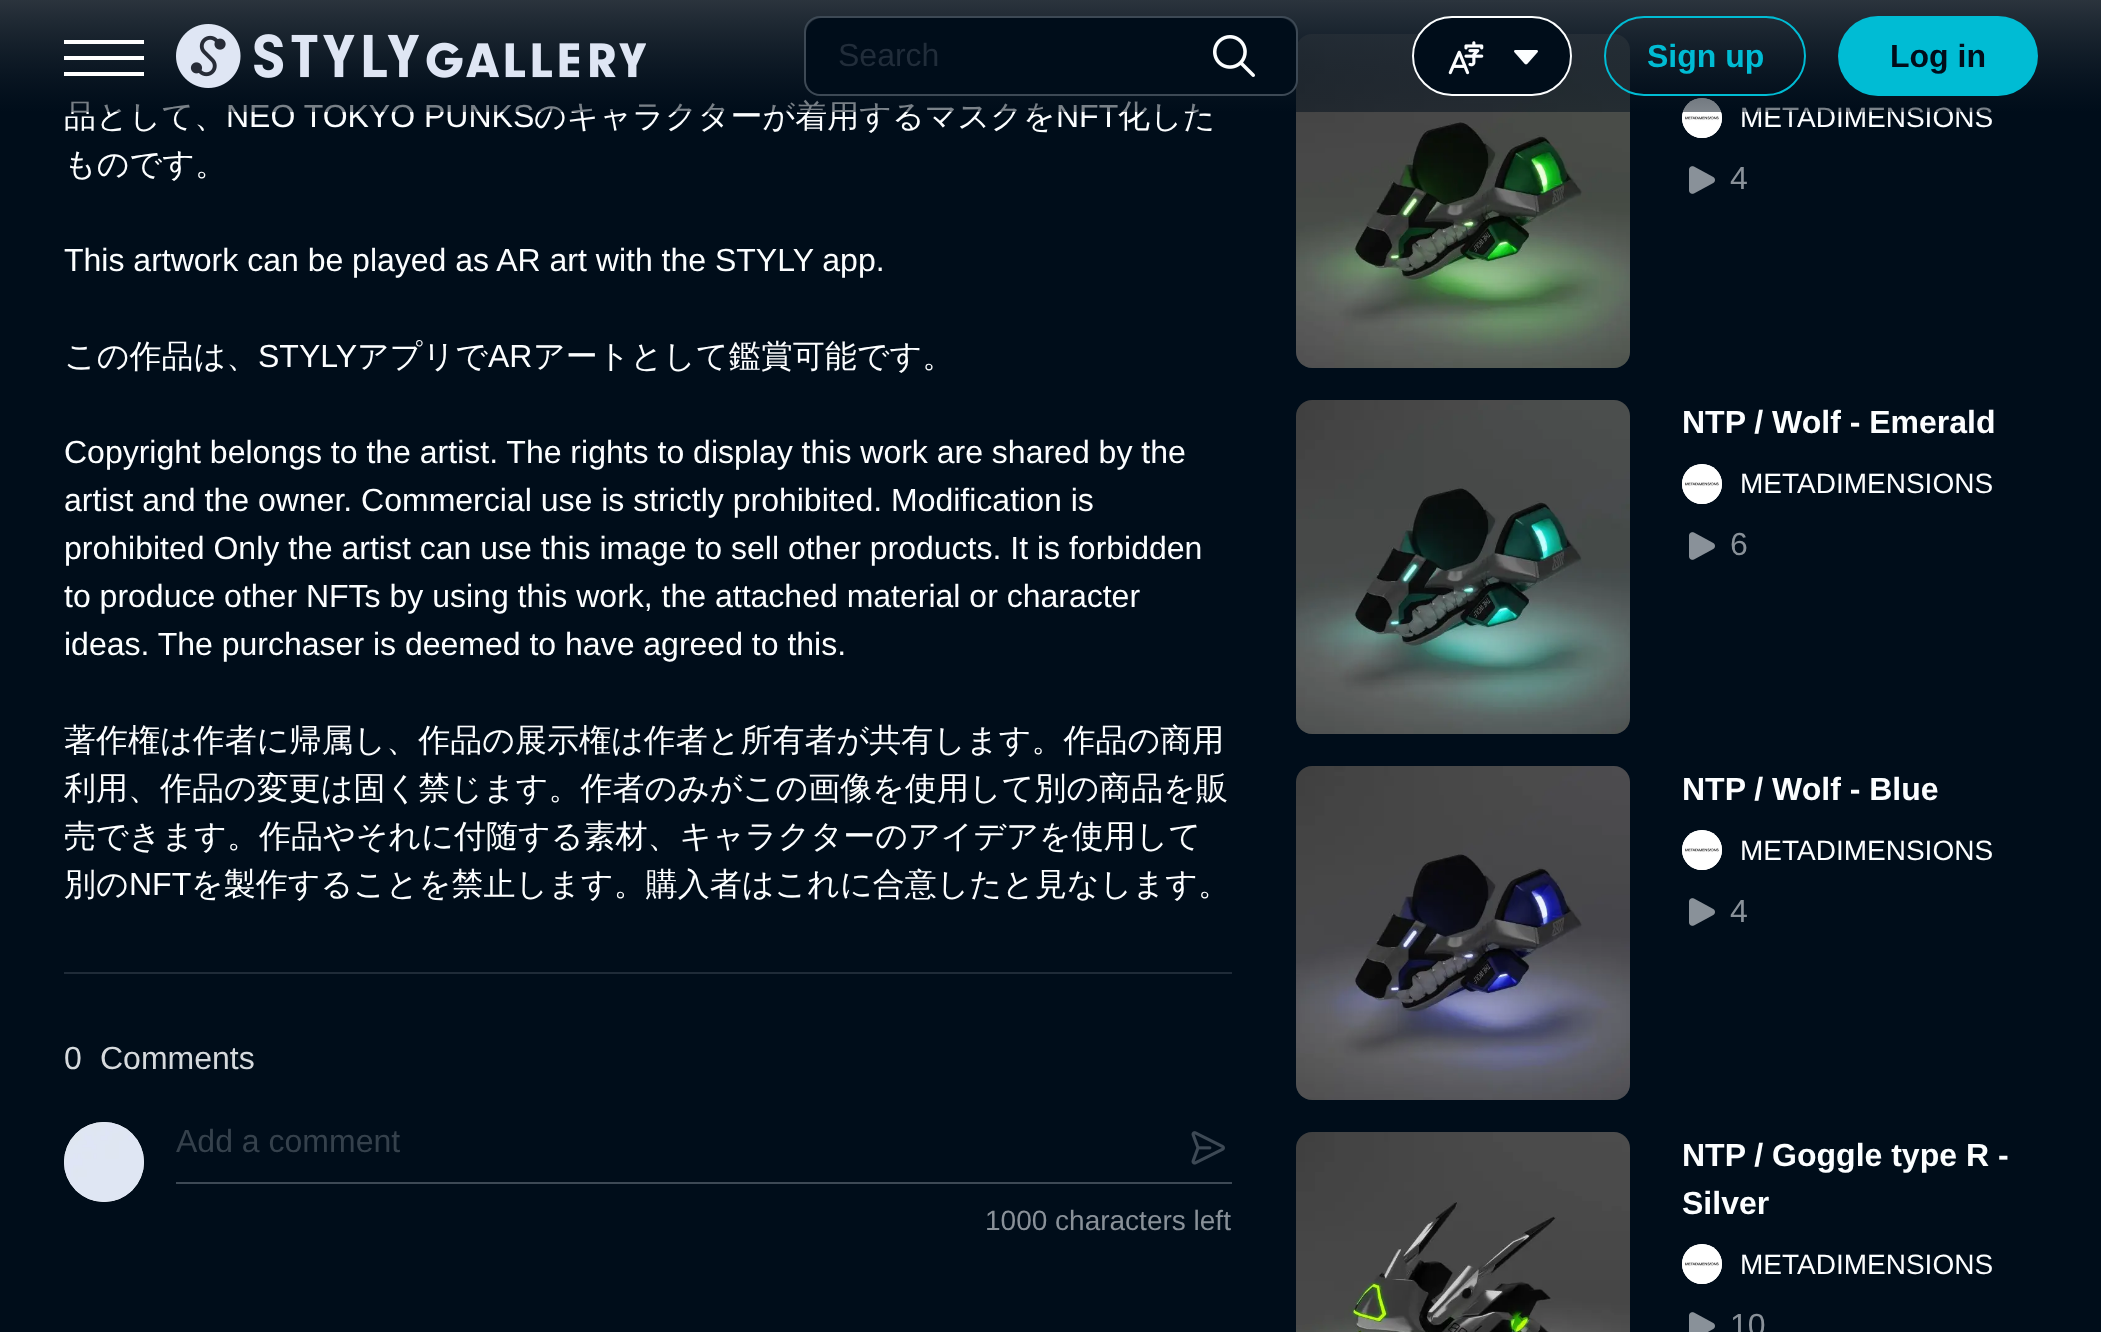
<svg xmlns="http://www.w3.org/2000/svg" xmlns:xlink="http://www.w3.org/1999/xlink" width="2101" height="1332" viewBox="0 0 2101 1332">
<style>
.cls-1{font:500 32px WenQuanYi Zen Hei;fill:#fcfeff}
.cls-2{font:32px Liberation Sans;fill:#fcfeff}
.cls-3{font:32px Liberation Sans;fill:#d6dadd}
.cls-4{font:32px Liberation Sans;fill:#35414c}
.cls-5{font:28px Liberation Sans;fill:#899199}
.cls-6{font:28px Liberation Sans;fill:#fcfeff}
.cls-7{font:bold 32px Liberation Sans;fill:#000d1a}
.cls-8{font:bold 32px Liberation Sans;fill:#00bcd4}
.cls-9{font:32px Liberation Sans;fill:#212d3a}
.cls-10{font:32px Liberation Sans;fill:#899199}
.cls-11{font:bold 32px Liberation Sans;fill:#fcfeff}
</style>
<defs>
<linearGradient id="g1" gradientUnits="userSpaceOnUse" x1="1463" y1="368" x2="1463" y2="34"><stop offset="0" stop-color="#0f1c29"/><stop offset="1" stop-color="#000d1a"/></linearGradient>
<linearGradient id="g2" gradientUnits="userSpaceOnUse" x1="1463" y1="734" x2="1463" y2="400"><stop offset="0" stop-color="#0f1c29"/><stop offset="1" stop-color="#000d1a"/></linearGradient>
<linearGradient id="g3" gradientUnits="userSpaceOnUse" x1="1463" y1="1100" x2="1463" y2="766"><stop offset="0" stop-color="#0f1c29"/><stop offset="1" stop-color="#000d1a"/></linearGradient>
<linearGradient id="g4" gradientUnits="userSpaceOnUse" x1="1463" y1="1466" x2="1463" y2="1132"><stop offset="0" stop-color="#0f1c29"/><stop offset="1" stop-color="#000d1a"/></linearGradient>
<linearGradient id="g5" gradientUnits="userSpaceOnUse" x1="1051" y1="0" x2="1051" y2="112"><stop offset="0" stop-color="#2b343d"/><stop offset="1" stop-color="#000d1a" stop-opacity="0.5"/></linearGradient>
<clipPath id="clip1"><rect x="806" y="18" width="490" height="76" rx="14"/></clipPath>
</defs>
<rect width="100%" height="100%" fill="#000d1a"/>
<rect fill="#1f2b38" x="64" y="972" width="1168" height="2"/>
<circle fill="#ffffff" cx="104" cy="1162" r="40"/>
<image xlink:href="image4.png" x="64" y="1122" width="80" height="80"/>
<rect fill="#3d4955" x="176" y="1182" width="1056" height="2"/>
<image xlink:href="image5.png" x="1191" y="1131" width="34" height="34"/>
<image xlink:href="image6.png" x="1307" y="1" width="312" height="1"/>
<rect fill="url(#g1)" x="1296" y="34" width="334" height="334" rx="16"/>
<image xlink:href="image7.png" x="1296" y="34" width="334" height="334"/>
<circle fill="#ffffff" cx="1702" cy="118" r="20"/>
<image xlink:href="image8.png" x="1682" y="98" width="40" height="40"/>
<image xlink:href="image9.png" x="1689" y="166" width="26" height="28"/>
<rect fill="url(#g2)" x="1296" y="400" width="334" height="334" rx="16"/>
<image xlink:href="image10.png" x="1296" y="400" width="334" height="334"/>
<circle fill="#ffffff" cx="1702" cy="484" r="20"/>
<image xlink:href="image8.png" x="1682" y="464" width="40" height="40"/>
<image xlink:href="image9.png" x="1689" y="532" width="26" height="28"/>
<rect fill="url(#g3)" x="1296" y="766" width="334" height="334" rx="16"/>
<image xlink:href="image11.png" x="1296" y="766" width="334" height="334"/>
<circle fill="#ffffff" cx="1702" cy="850" r="20"/>
<image xlink:href="image8.png" x="1682" y="830" width="40" height="40"/>
<image xlink:href="image9.png" x="1689" y="898" width="26" height="28"/>
<rect fill="url(#g4)" x="1296" y="1132" width="334" height="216" rx="16"/>
<image xlink:href="image12.png" x="1296" y="1132" width="334" height="200"/>
<circle fill="#ffffff" cx="1702" cy="1264" r="20"/>
<image xlink:href="image8.png" x="1682" y="1244" width="40" height="40"/>
<image xlink:href="image13.png" x="1689" y="1312" width="26" height="20"/>
<text class="cls-1" x="64" y="127">品として、</text>
<text class="cls-2" x="226" y="127">NEO TOKYO PUNKS</text>
<text class="cls-1" x="534" y="127">のキャラクターが着用するマスクを</text>
<text class="cls-2" x="1056" y="127">NFT</text>
<text class="cls-1" x="1118" y="127">化した</text>
<text class="cls-1" x="64" y="175">ものです。</text>
<text class="cls-2" x="64" y="271">This artwork can be played as AR art with the STYLY app.</text>
<text class="cls-1" x="64" y="367">この作品は、</text>
<text class="cls-2" x="258" y="367">STYLY</text>
<text class="cls-1" x="357" y="367">アプリで</text>
<text class="cls-2" x="488" y="367">AR</text>
<text class="cls-1" x="533" y="367">アートとして鑑賞可能です。</text>
<text class="cls-2"><tspan x="64" y="463">Copyright belongs to the artist. The rights to display this work are shared by the</tspan><tspan x="64" y="511">artist and the owner. Commercial use is strictly prohibited. Modification is</tspan><tspan x="64" y="559">prohibited Only the artist can use this image to sell other products. It is forbidden</tspan><tspan x="64" y="607">to produce other NFTs by using this work, the attached material or character</tspan><tspan x="64" y="655">ideas. The purchaser is deemed to have agreed to this.</tspan></text>
<text class="cls-1"><tspan x="64" y="751">著作権は作者に帰属し、作品の展示権は作者と所有者が共有します。作品の商用</tspan><tspan x="64" y="799">利用、作品の変更は固く禁じます。作者のみがこの画像を使用して別の商品を販</tspan><tspan x="64" y="847">売できます。作品やそれに付随する素材、キャラクターのアイデアを使用して</tspan><tspan x="64" y="895">別の</tspan></text>
<text class="cls-2" x="129" y="895">NFT</text>
<text class="cls-1" x="191" y="895">を製作することを禁止します。購入者はこれに合意したと見なします。</text>
<text class="cls-3" x="64" y="1069">0</text>
<text class="cls-3" x="100" y="1069">Comments</text>
<text class="cls-4" x="176" y="1152">Add a comment</text>
<text class="cls-5" x="985" y="1230">1000 characters left</text>
<text class="cls-6" x="1740" y="127">METADIMENSIONS</text>
<rect fill="url(#g5)" x="0" y="0" width="2101" height="112"/>
<rect fill="#000d1a" stroke="#fcfeff" stroke-width="2" x="1413" y="17" width="158" height="78" rx="39"/>
<image xlink:href="image3.png" x="1514" y="50" width="24" height="15"/>
<image xlink:href="image2.png" x="1448" y="41" width="36" height="34"/>
<rect fill="#00bcd4" x="1838" y="16" width="200" height="80" rx="40"/>
<text class="cls-7" x="1890" y="67">Log in</text>
<rect fill="none" stroke="#00bcd4" stroke-width="2" x="1605" y="17" width="200" height="78" rx="39"/>
<text class="cls-8" x="1647" y="67">Sign up</text>
<rect fill="#ffffff" x="64" y="72" width="80" height="4"/>
<rect fill="#ffffff" x="64" y="56" width="80" height="4"/>
<rect fill="#ffffff" x="64" y="40" width="80" height="4"/>
<image xlink:href="image0.png" x="176" y="24" width="470" height="64"/>
<rect fill="none" stroke="#3d4955" stroke-width="2" x="805" y="17" width="492" height="78" rx="15"/>
<g clip-path="url(#clip1)">
<path fill="#000d1a" d="M1172 18H1280C1289 18 1296 25 1296 34V78C1296 87 1289 94 1280 94H1172Z"/>
</g>
<image xlink:href="image1.png" x="1213" y="35" width="42" height="42"/>
<g clip-path="url(#clip1)">
<path fill="#000d1a" d="M822 18H1172V94H822C813 94 806 87 806 78V34C806 25 813 18 822 18Z"/>
</g>
<text class="cls-9" x="838" y="66">Search</text>
<text class="cls-10" x="1730" y="189">4</text>
<text class="cls-11" x="1682" y="433">NTP / Wolf - Emerald</text>
<text class="cls-6" x="1740" y="493">METADIMENSIONS</text>
<text class="cls-10" x="1730" y="555">6</text>
<text class="cls-11" x="1682" y="800">NTP / Wolf - Blue</text>
<text class="cls-6" x="1740" y="860">METADIMENSIONS</text>
<text class="cls-10" x="1730" y="922">4</text>
<text class="cls-11"><tspan x="1682" y="1166">NTP / Goggle type R -</tspan><tspan x="1682" y="1214">Silver</tspan></text>
<text class="cls-6" x="1740" y="1274">METADIMENSIONS</text>
<text class="cls-10" x="1730" y="1336">10</text>
</svg>
